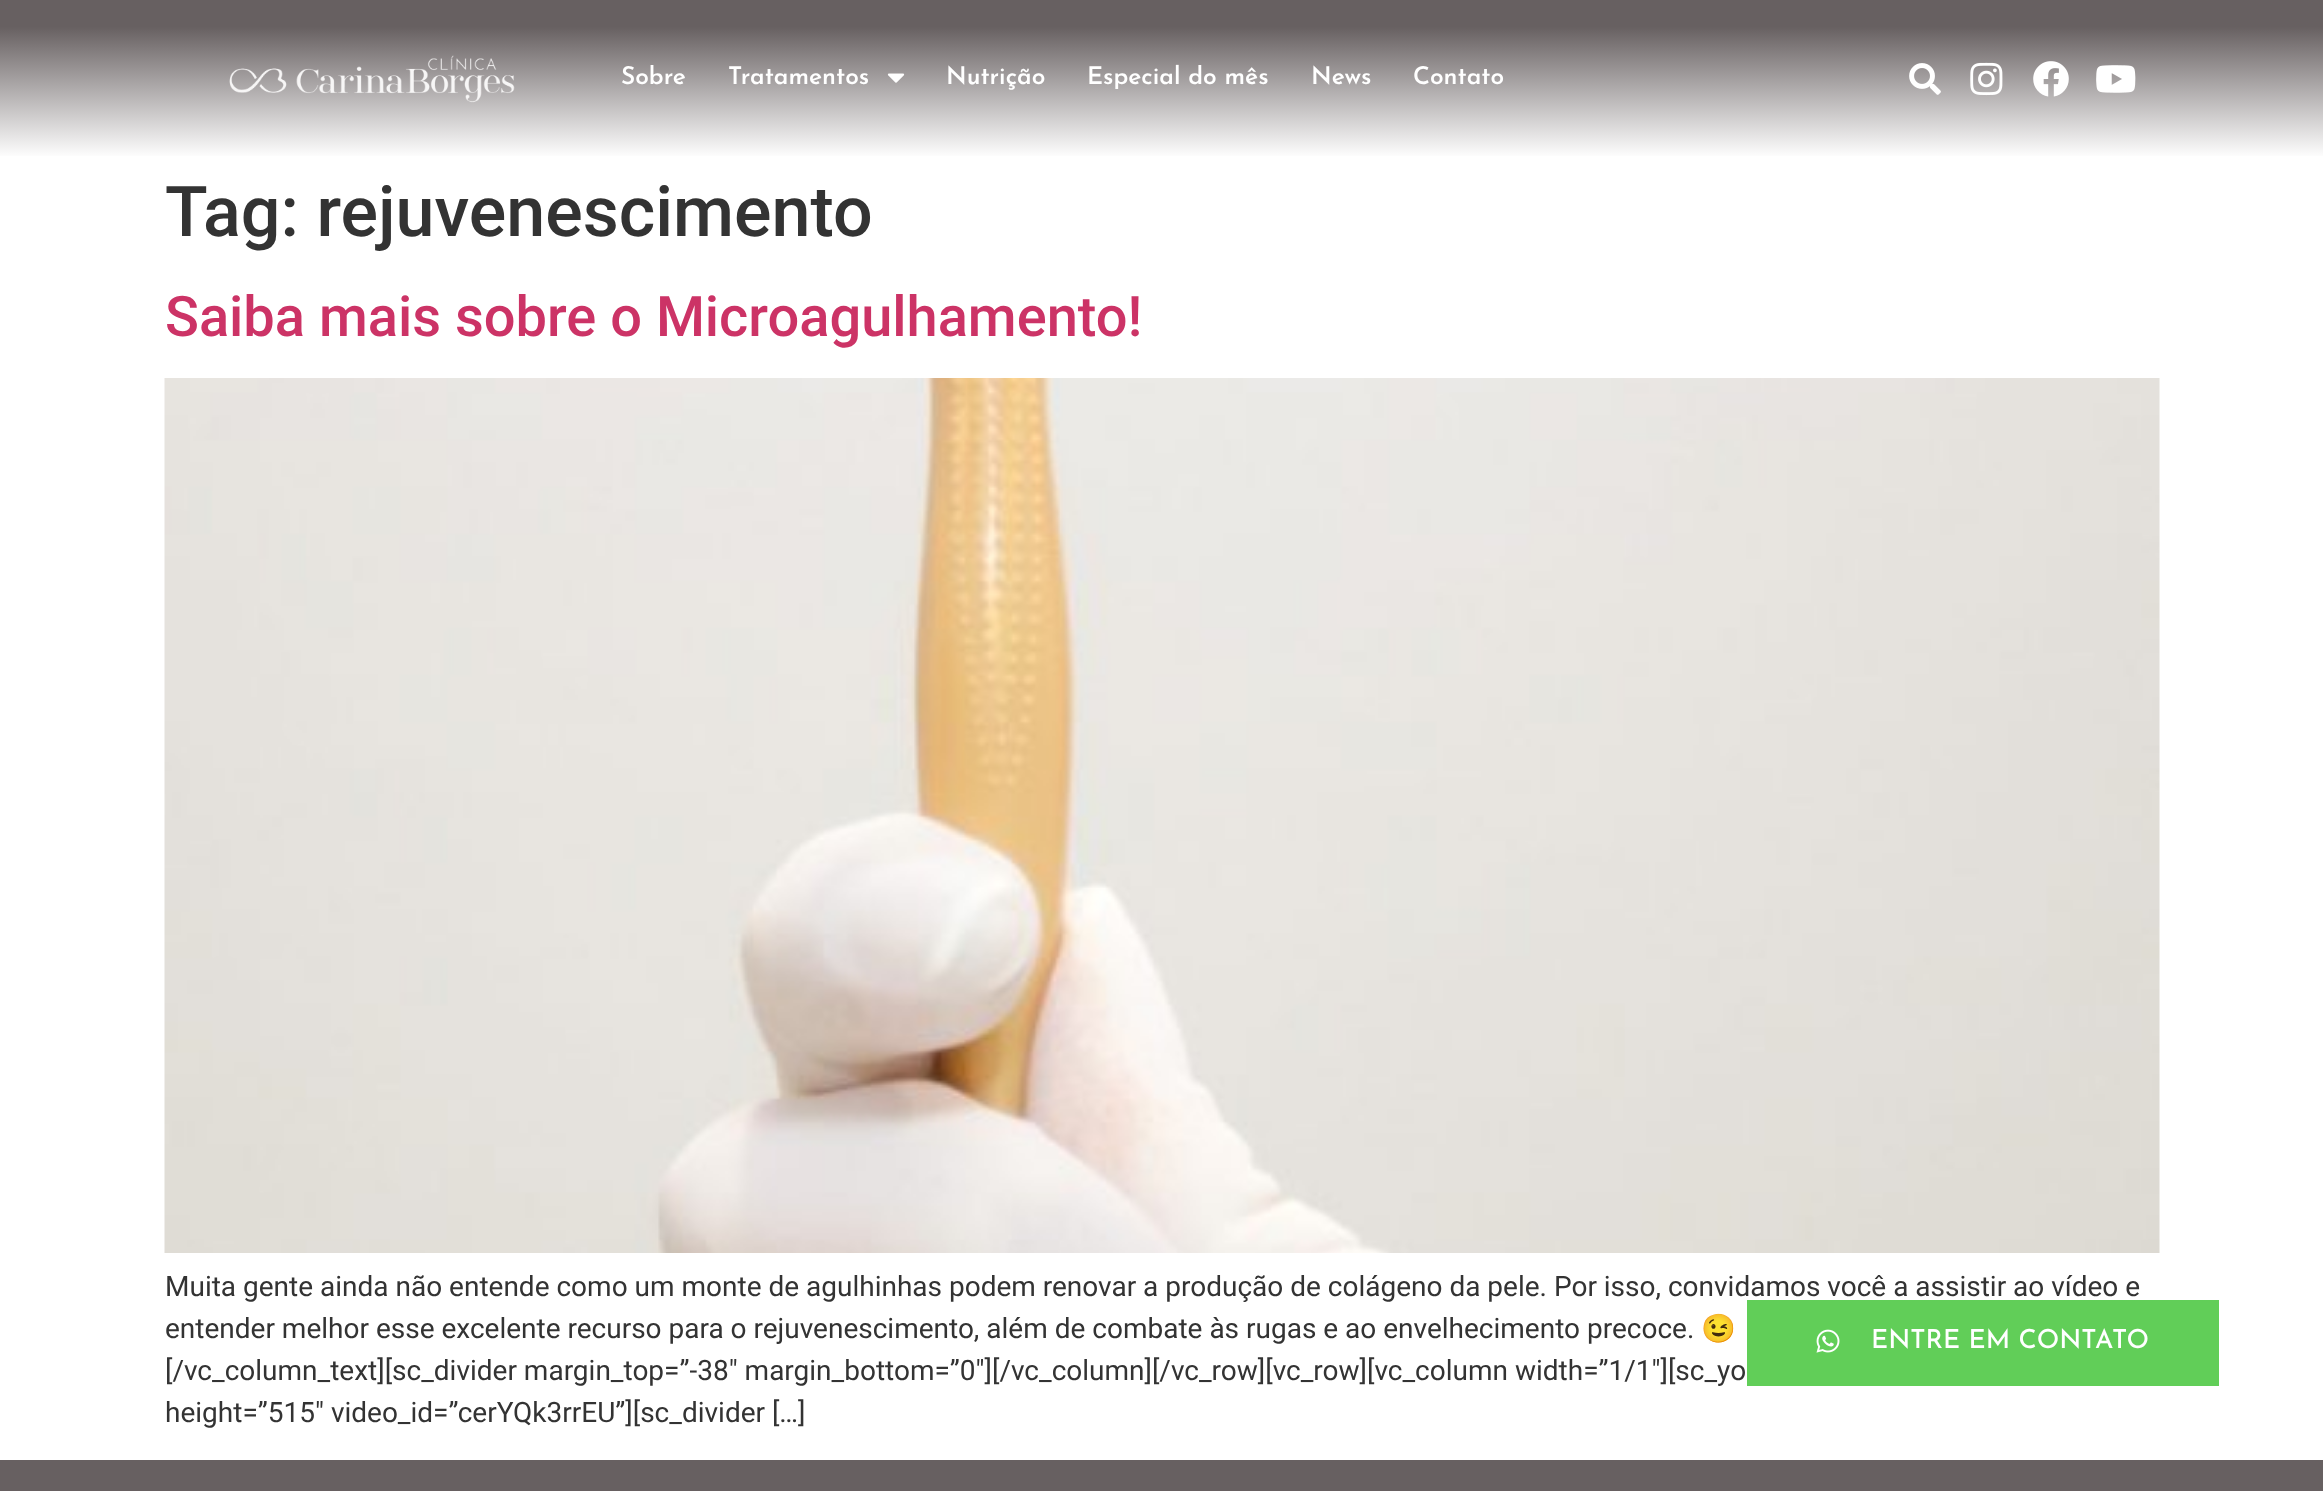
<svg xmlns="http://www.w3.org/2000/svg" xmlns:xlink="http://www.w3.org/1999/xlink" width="2323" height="1491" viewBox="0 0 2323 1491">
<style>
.cls-1{font:600 24.5px Josefin Sans;fill:#ffffff}
.cls-2{font:500 70px Roboto;fill:#333333}
.cls-3{font:500 56px Roboto;fill:#cc3366}
.cls-4{font:28px Roboto;fill:#333333}
.cls-5{font:28px Noto Color Emoji;fill:#333333}
.cls-6{font:500 26.25px Josefin Sans;fill:#ffffff}
</style>
<defs>
<linearGradient id="g1" gradientUnits="userSpaceOnUse" x1="1162" y1="0" x2="1162" y2="158"><stop offset="0.17" stop-color="#676061"/><stop offset="1" stop-color="#ffffff"/></linearGradient>
</defs>
<rect width="100%" height="100%" fill="#ffffff"/>
<rect fill="url(#g1)" x="0" y="0" width="2323" height="156"/>
<image xlink:href="image0.png" x="229" y="55" width="286" height="48"/>
<image xlink:href="image1.png" x="887" y="73" width="18" height="10"/>
<image xlink:href="image2.png" x="1909" y="63" width="32" height="32"/>
<image xlink:href="image3.png" x="1970" y="62" width="33" height="34"/>
<image xlink:href="image4.png" x="2033" y="61" width="36" height="36"/>
<image xlink:href="image5.png" x="2096" y="65" width="40" height="28"/>
<image xlink:href="image6.png" x="164" y="378" width="1996" height="875"/>
<rect fill="#676061" x="0" y="1460" width="2323" height="31"/>
<text class="cls-1" x="621" y="84">Sobre</text>
<text class="cls-1" x="728" y="84">Tratamentos</text>
<text class="cls-1" x="946" y="84">Nutrição</text>
<text class="cls-1" x="1087" y="84">Especial do mês</text>
<text class="cls-1" x="1311" y="84">News</text>
<text class="cls-1" x="1413" y="84">Contato</text>
<text class="cls-2" x="165" y="236">Tag: rejuvenescimento</text>
<text class="cls-3" x="165" y="336">Saiba mais sobre o Microagulhamento!</text>
<text class="cls-4"><tspan x="165" y="1296">Muita gente ainda não entende como um monte de agulhinhas podem renovar a produção de colágeno da pele. Por isso, convidamos você a assistir ao vídeo e</tspan><tspan x="165" y="1338">entender melhor esse excelente recurso para o rejuvenescimento, além de combate às rugas e ao envelhecimento precoce.</tspan></text>
<text class="cls-5" x="1701" y="1338">😉</text>
<text class="cls-4"><tspan x="165" y="1380">[/vc_column_text][sc_divider margin_top=”-38″ margin_bottom=”0″][/vc_column][/vc_row][vc_row][vc_column width=”1/1″][sc_yo</tspan><tspan x="165" y="1422">height=”515″ video_id=”cerYQk3rrEU”][sc_divider […]</tspan></text>
<rect fill="#61ce58" x="1747" y="1300" width="472" height="86"/>
<image xlink:href="image7.png" x="1816" y="1329" width="24" height="24"/>
<text class="cls-6" x="1871" y="1348">ENTRE EM CONTATO</text>
</svg>
